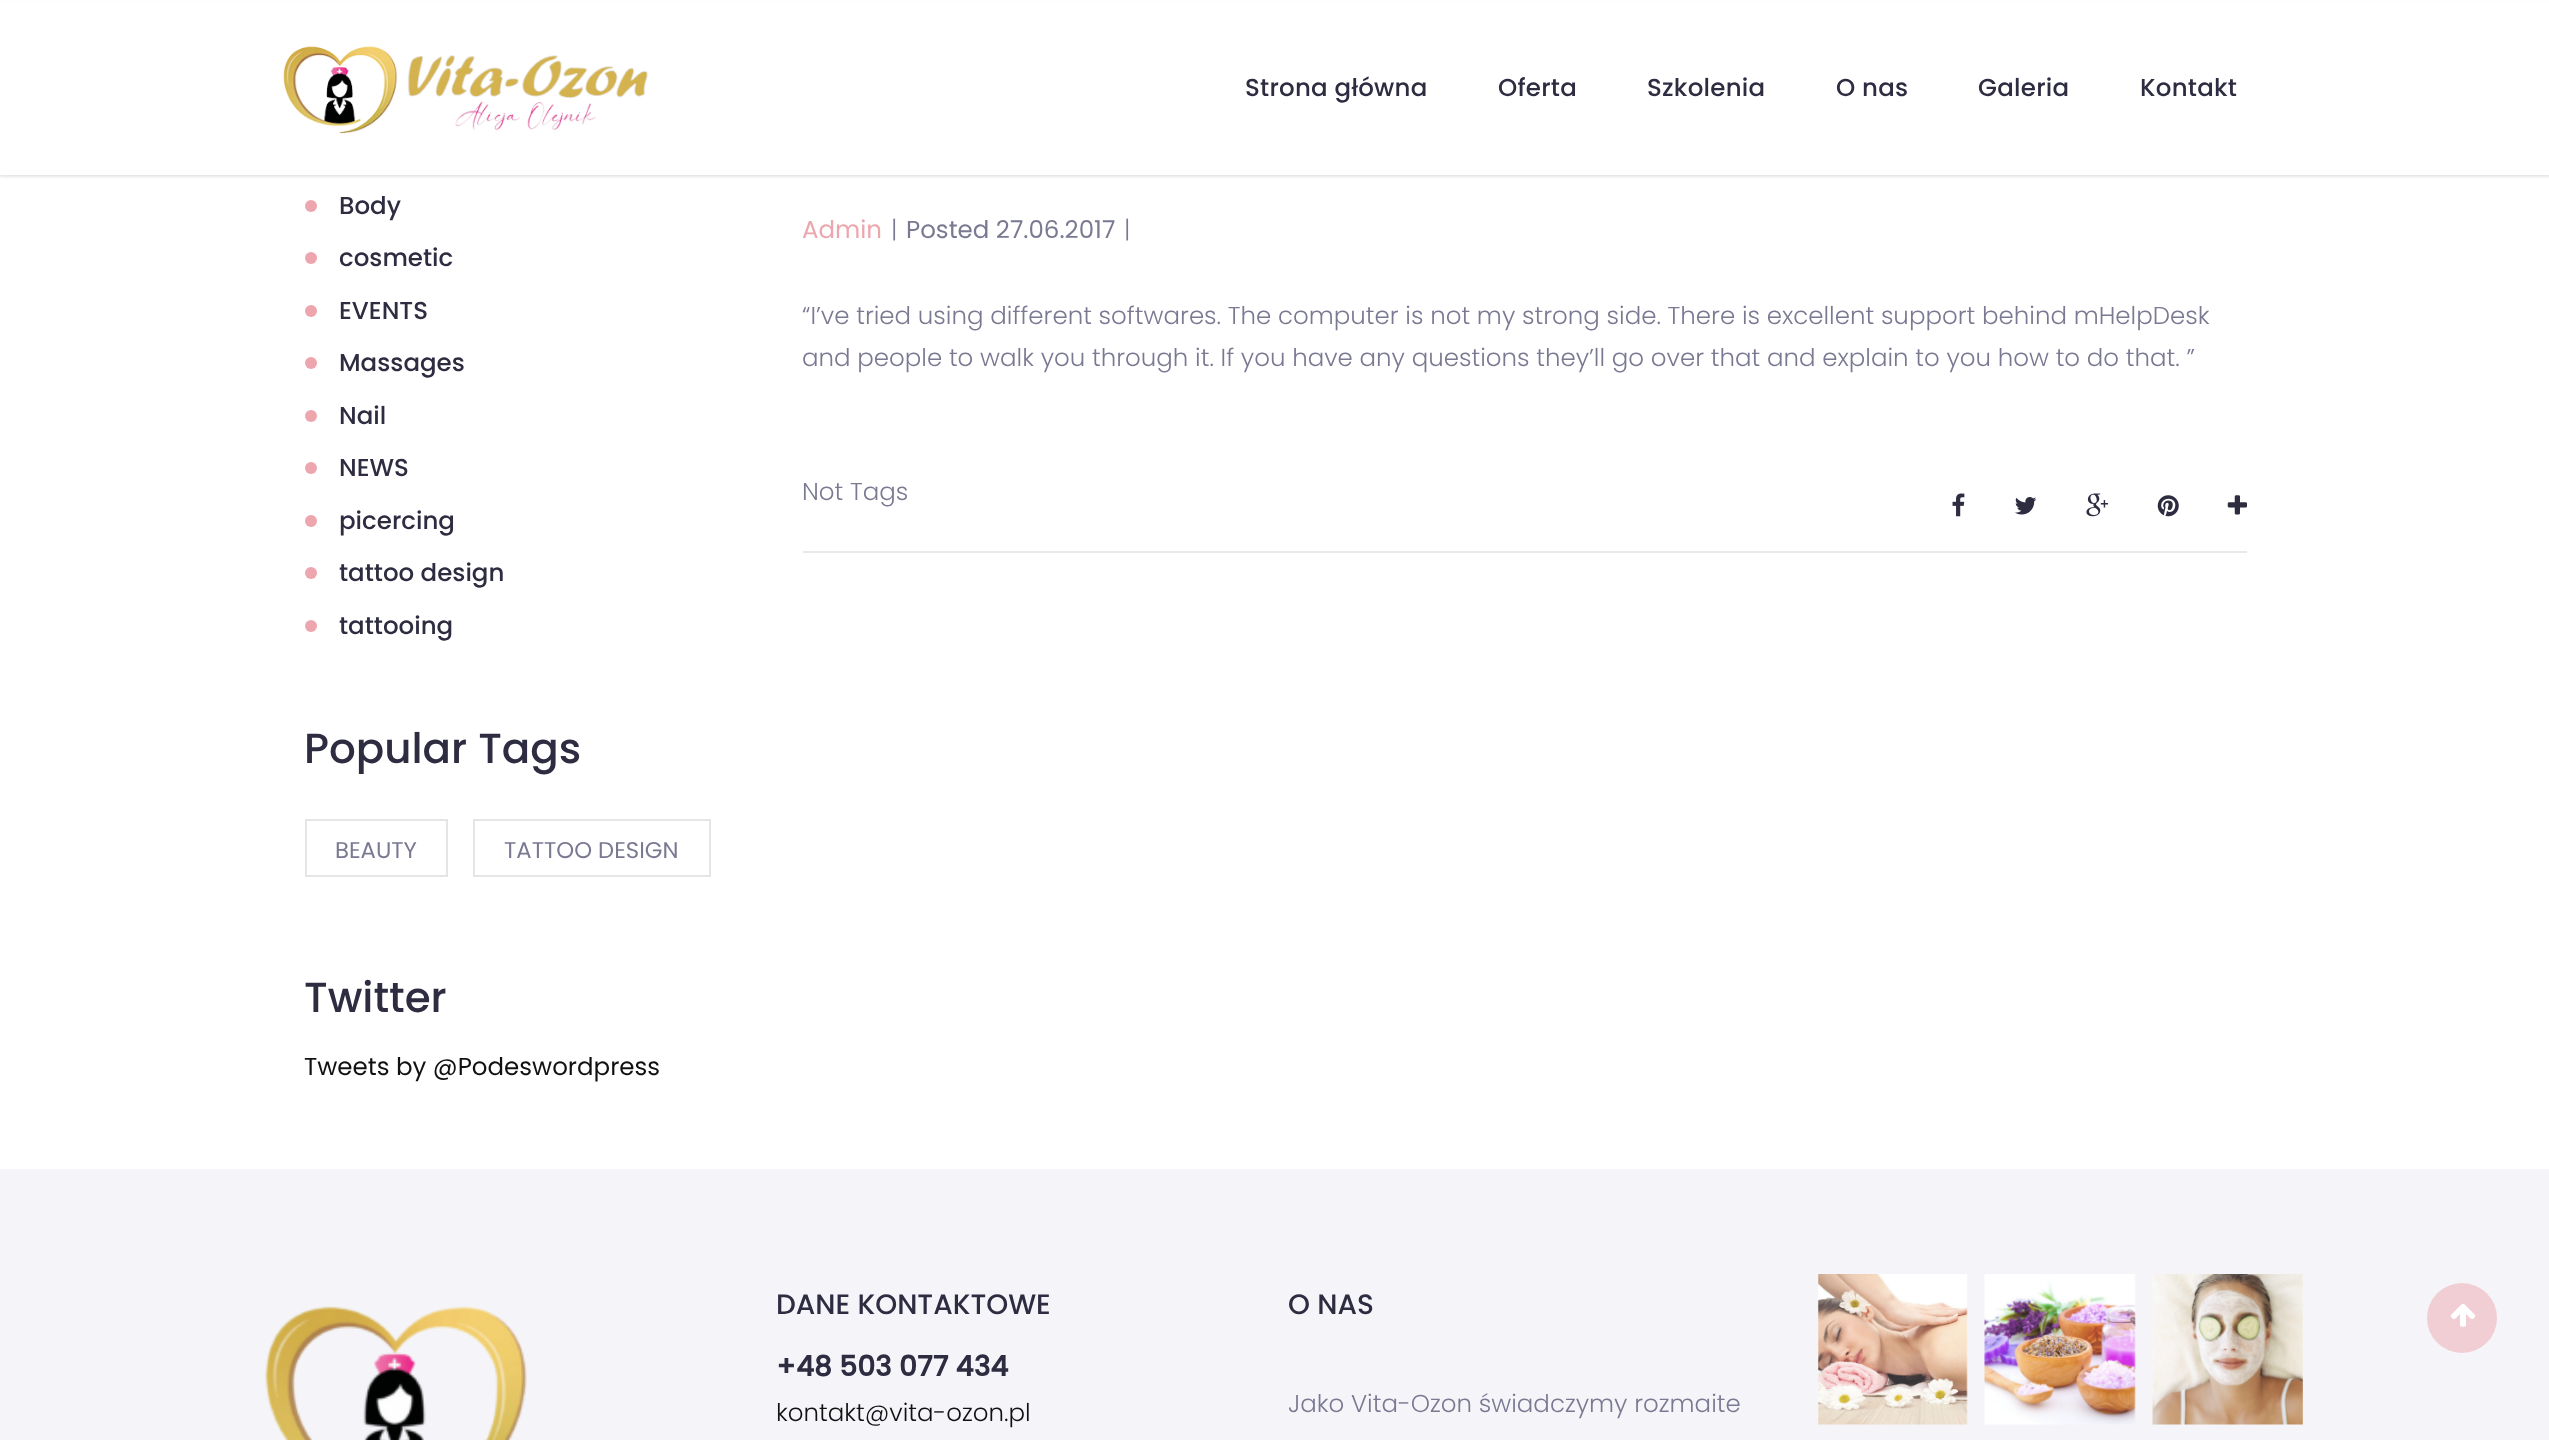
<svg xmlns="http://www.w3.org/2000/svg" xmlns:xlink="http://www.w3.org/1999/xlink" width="2549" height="1440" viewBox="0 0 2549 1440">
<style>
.cls-1{font:500 24.5px Poppins;letter-spacing:0.25px;fill:#2d2c40}
.cls-2{font:500 24.5px Poppins;fill:#2d2c40}
.cls-3{font:500 42px Poppins;fill:#2d2c40}
.cls-4{font:22.75px Poppins;fill:#7a7992}
.cls-5{font:24.5px Poppins;fill:#111111}
.cls-6{font:24.5px Poppins;fill:#eda6ad}
.cls-7{font:300 24.5px Poppins;fill:#7a7992}
.cls-8{font:24.5px Poppins;fill:#7a7992}
.cls-9{font:500 28px Poppins;fill:#2d2c40}
.cls-10{font:bold 28px Poppins;fill:#2d2c40}
.cls-11{font:300 24.5px Poppins;fill:#111111}
</style>
<rect width="100%" height="100%" fill="#ffffff"/>
<rect fill="#000000" fill-opacity="0.1" filter="blur(1px)" x="0" y="2" width="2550" height="175"/>
<rect fill="#ffffff" x="0" y="1" width="2549" height="174"/>
<image xlink:href="image0.png" x="283" y="46" width="365" height="88"/>
<circle fill="#eda6ad" cx="311" cy="206" r="6"/>
<circle fill="#eda6ad" cx="311" cy="258" r="6"/>
<circle fill="#eda6ad" cx="311" cy="311" r="6"/>
<circle fill="#eda6ad" cx="311" cy="363" r="6"/>
<circle fill="#eda6ad" cx="311" cy="416" r="6"/>
<circle fill="#eda6ad" cx="311" cy="468" r="6"/>
<circle fill="#eda6ad" cx="311" cy="521" r="6"/>
<circle fill="#eda6ad" cx="311" cy="573" r="6"/>
<circle fill="#eda6ad" cx="311" cy="626" r="6"/>
<rect fill="none" stroke="#e5e5e5" stroke-width="2" x="306" y="820" width="141" height="56"/>
<rect fill="none" stroke="#e5e5e5" stroke-width="2" x="474" y="820" width="236" height="56"/>
<rect fill="#e9e9e9" x="803" y="551" width="1444" height="2"/>
<image xlink:href="image1.png" x="1952" y="493" width="13" height="24"/>
<image xlink:href="image2.png" x="2015" y="497" width="22" height="18"/>
<image xlink:href="image3.png" x="2086" y="493" width="23" height="24"/>
<image xlink:href="image4.png" x="2157" y="495" width="22" height="22"/>
<image xlink:href="image5.png" x="2227" y="495" width="20" height="20"/>
<rect fill="#f5f5f9" x="0" y="1169" width="2549" height="271"/>
<image xlink:href="image6.png" x="264" y="1306" width="263" height="134"/>
<image xlink:href="image7.png" x="1818" y="1274" width="150" height="151"/>
<image xlink:href="image8.png" x="1984" y="1274" width="152" height="151"/>
<image xlink:href="image9.png" x="2152" y="1274" width="151" height="151"/>
<circle fill="#f1ced3" cx="2462" cy="1318" r="35"/>
<image xlink:href="image10.png" x="2450" y="1303" width="26" height="24"/>
<text class="cls-1" x="1245" y="96">Strona główna</text>
<text class="cls-1" x="1498" y="96">Oferta</text>
<text class="cls-1" x="1647" y="96">Szkolenia</text>
<text class="cls-1" x="1836" y="96">O nas</text>
<text class="cls-1" x="1978" y="96">Galeria</text>
<text class="cls-1" x="2140" y="96">Kontakt</text>
<text class="cls-2" x="339" y="214">Body</text>
<text class="cls-2" x="339" y="266">cosmetic</text>
<text class="cls-2" x="339" y="319">EVENTS</text>
<text class="cls-2" x="339" y="371">Massages</text>
<text class="cls-2" x="339" y="424">Nail</text>
<text class="cls-2" x="339" y="476">NEWS</text>
<text class="cls-2" x="339" y="529">picercing</text>
<text class="cls-2" x="339" y="581">tattoo design</text>
<text class="cls-2" x="339" y="634">tattooing</text>
<text class="cls-3" x="304" y="763">Popular Tags</text>
<text class="cls-4" x="335" y="858">BEAUTY</text>
<text class="cls-4" x="504" y="858">TATTOO DESIGN</text>
<text class="cls-3" x="304" y="1012">Twitter</text>
<text class="cls-5" x="304" y="1075">Tweets by @Podeswordpress</text>
<text class="cls-6" x="802" y="238">Admin</text>
<text class="cls-7" x="891" y="238">|</text>
<text class="cls-8" x="906" y="238">Posted 27.06.2017</text>
<text class="cls-7" x="1124" y="238">|</text>
<text class="cls-7"><tspan x="802" y="324">“I’ve tried using different softwares. The computer is not my strong side. There is excellent support behind mHelpDesk</tspan><tspan x="802" y="366">and people to walk you through it. If you have any questions they’ll go over that and explain to you how to do that. ”</tspan></text>
<text class="cls-7" x="802" y="500">Not Tags</text>
<text class="cls-9" x="776" y="1314">DANE KONTAKTOWE</text>
<text class="cls-10" x="776" y="1376">+48 503 077 434</text>
<text class="cls-11" x="776" y="1421">kontakt@vita-ozon.pl</text>
<text class="cls-9" x="1288" y="1314">O NAS</text>
<text class="cls-7" x="1288" y="1412">Jako Vita-Ozon świadczymy rozmaite</text>
</svg>
